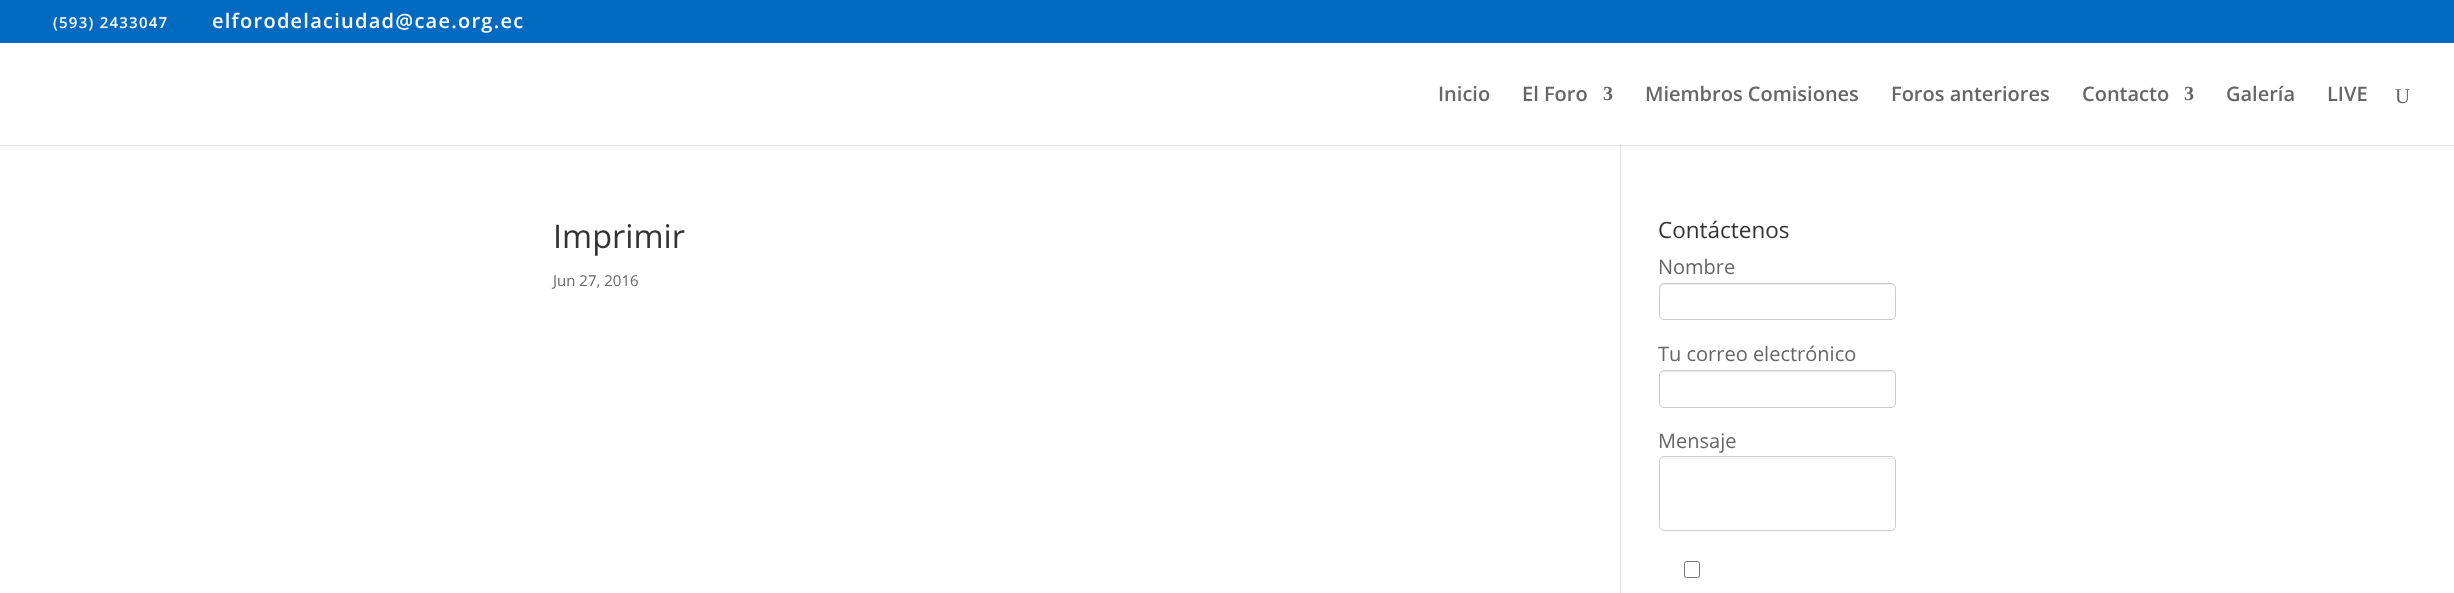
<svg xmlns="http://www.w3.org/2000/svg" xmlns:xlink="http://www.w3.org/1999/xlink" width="2454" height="593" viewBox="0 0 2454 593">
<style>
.cls-1{font:600 15px Open Sans;letter-spacing:1.25px;fill:#ffffff}
.cls-2{font:600 20px Open Sans;letter-spacing:1.25px;fill:#ffffff}
.cls-3{font:600 20px Open Sans;fill:#666666}
.cls-4{font:bold 20px Liberation Serif;fill:#666666}
.cls-5{font:21px Liberation Serif;fill:#666666}
.cls-6{font:32.5px Open Sans;fill:#333333}
.cls-7{font:15px Open Sans;fill:#666666}
.cls-8{font:22.5px Open Sans;fill:#333333}
.cls-9{font:20px Open Sans;fill:#666666}
</style>
<rect width="100%" height="100%" fill="#ffffff"/>
<rect fill="#e6e6e6" x="0" y="145" width="2454" height="1"/>
<rect fill="#006ac1" x="0" y="0" width="2454" height="43"/>
<rect fill="#e2e2e2" x="1620" y="145" width="1" height="448"/>
<rect fill="#cbcbcb" x="1620" y="145" width="1" height="1"/>
<path fill="#ececec" d="M1664 285H1891C1893 285 1895 287 1895 289C1895 286 1894 284 1891 284H1664C1661 284 1660 286 1660 289C1660 287 1662 285 1664 285Z"/>
<rect fill="none" stroke="#cccccc" x="1659.5" y="283.5" width="236" height="36" rx="4.5"/>
<path fill="#ececec" d="M1664 372H1891C1893 372 1895 374 1895 376C1895 373 1894 371 1891 371H1664C1661 371 1660 373 1660 376C1660 374 1662 372 1664 372Z"/>
<rect fill="none" stroke="#cccccc" x="1659.5" y="370.5" width="236" height="37" rx="4.5"/>
<path fill="#ececec" d="M1664 459H1891C1893 459 1895 460 1895 462C1895 460 1893 458 1891 458H1664C1662 458 1660 460 1660 462C1660 460 1662 459 1664 459Z"/>
<rect fill="none" stroke="#cccccc" x="1659.5" y="456.5" width="236" height="74" rx="4.5"/>
<rect fill="none" stroke="#767676" x="1684.5" y="561.5" width="15" height="16" rx="2"/>
<text class="cls-1" x="53" y="28">(593) 2433047</text>
<text class="cls-2" x="212" y="28">elforodelaciudad@cae.org.ec</text>
<text class="cls-3" x="1438" y="101">Inicio</text>
<text class="cls-3" x="1522" y="101">El Foro</text>
<text class="cls-4" x="1603" y="100">3</text>
<text class="cls-3" x="1645" y="101">Miembros Comisiones</text>
<text class="cls-3" x="1891" y="101">Foros anteriores</text>
<text class="cls-3" x="2082" y="101">Contacto</text>
<text class="cls-4" x="2184" y="100">3</text>
<text class="cls-3" x="2226" y="101">Galería</text>
<text class="cls-3" x="2327" y="101">LIVE</text>
<text class="cls-5" x="2395" y="103">U</text>
<text class="cls-6" x="553" y="248">Imprimir</text>
<text class="cls-7" x="553" y="286">Jun 27, 2016</text>
<text class="cls-8" x="1658" y="238">Contáctenos</text>
<text class="cls-9" x="1658" y="274">Nombre</text>
<text class="cls-9" x="1658" y="361">Tu correo electrónico</text>
<text class="cls-9" x="1658" y="448">Mensaje</text>
</svg>
